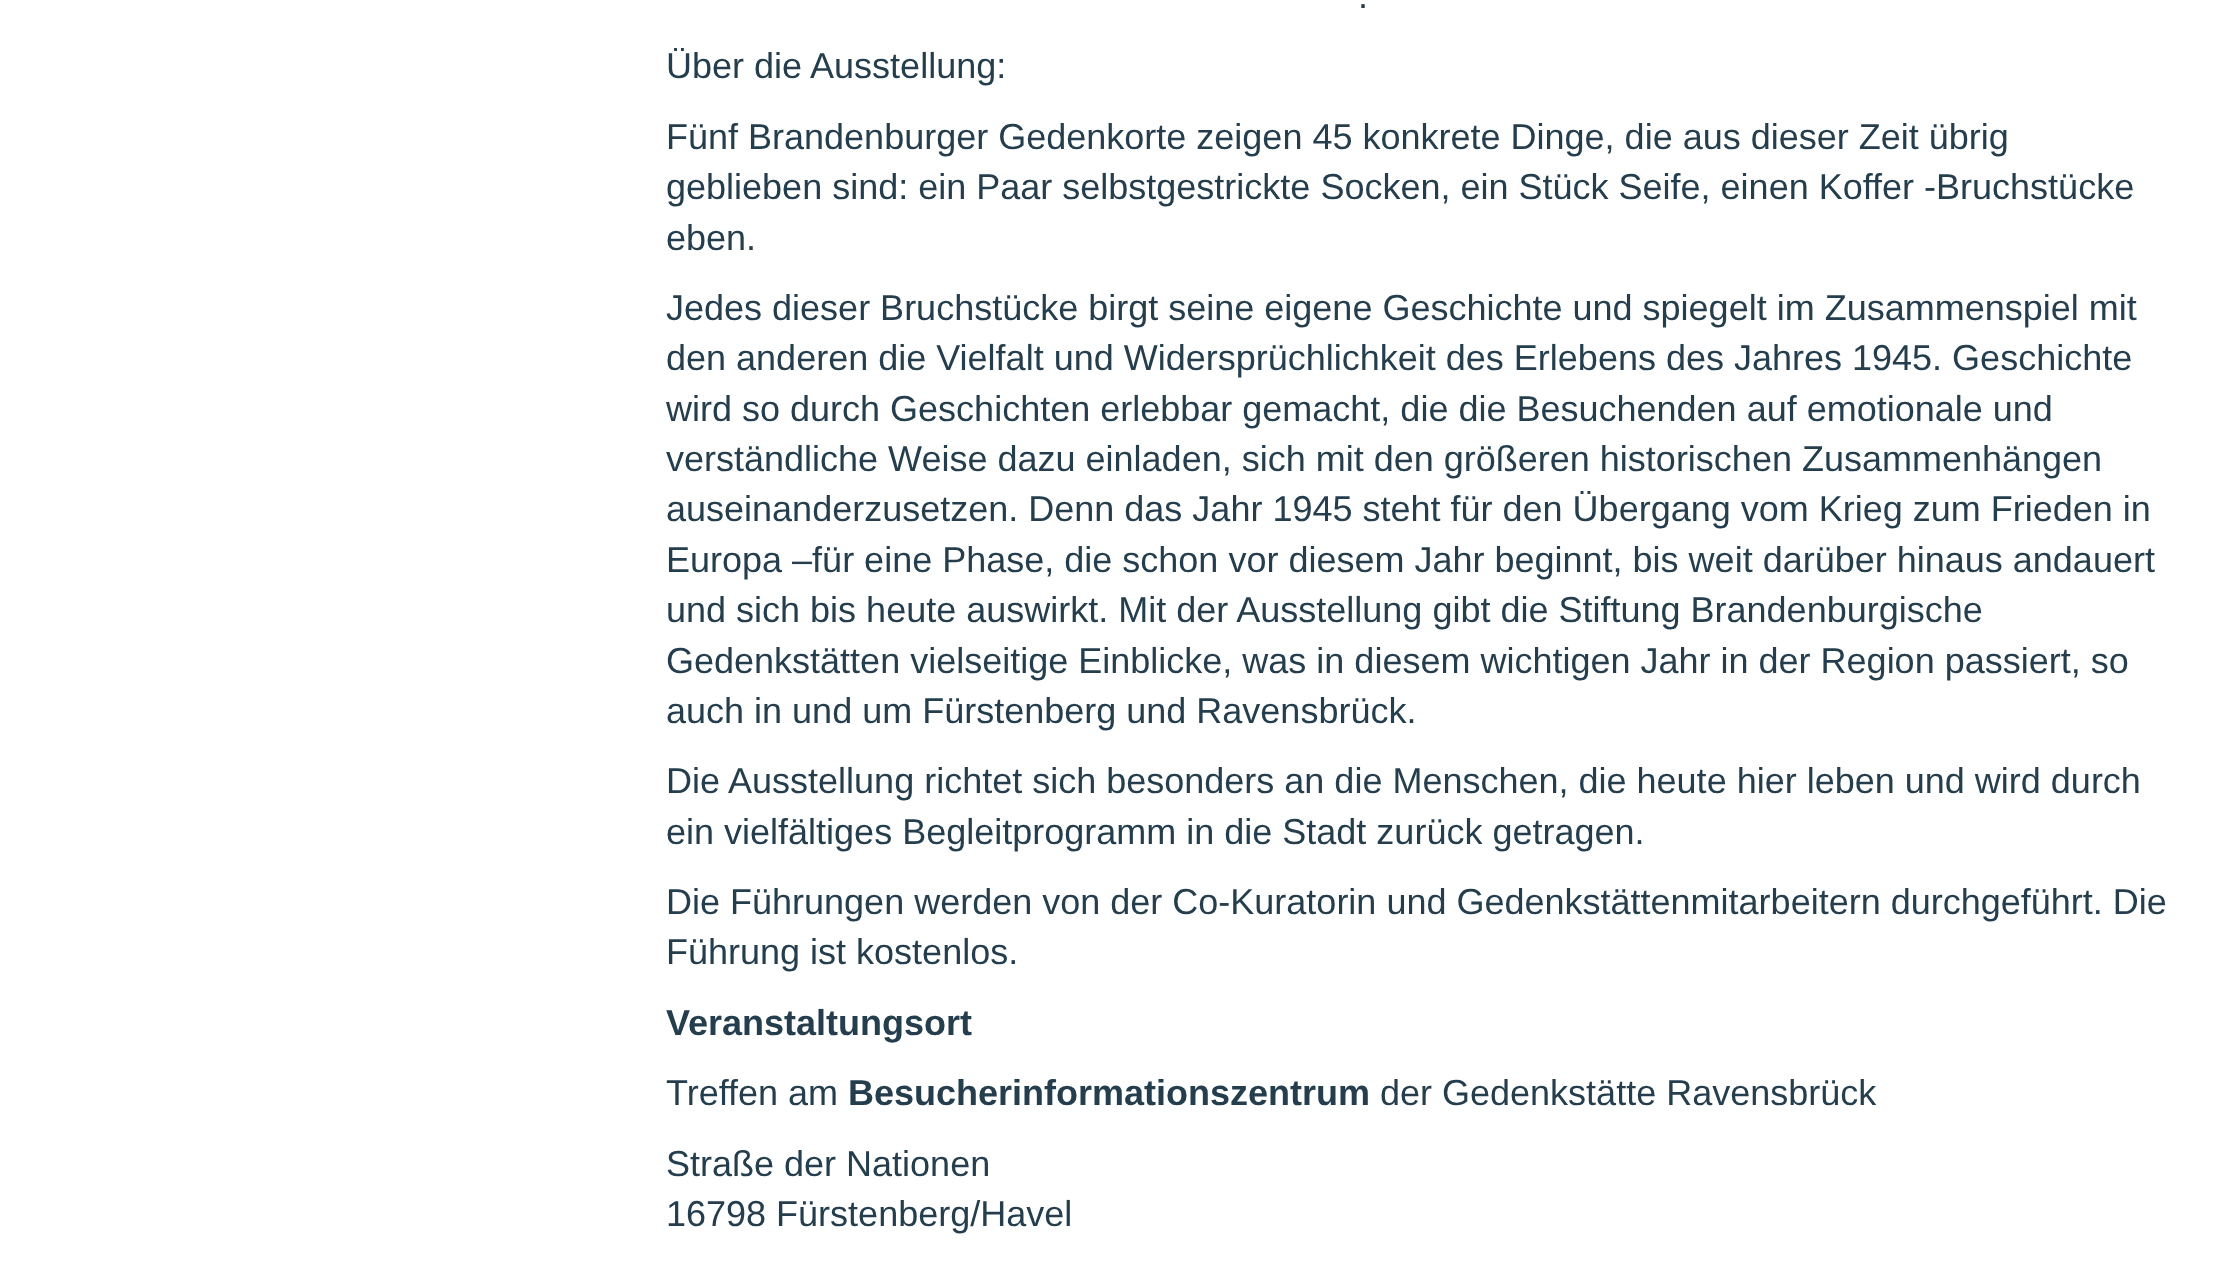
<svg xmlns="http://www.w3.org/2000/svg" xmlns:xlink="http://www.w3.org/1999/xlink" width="2228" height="1285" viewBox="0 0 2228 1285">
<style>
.cls-1{font:36px Liberation Sans;fill:#253e4e}
.cls-2{font:bold 36px Liberation Sans;fill:#253e4e}
</style>
<rect width="100%" height="100%" fill="#ffffff"/>
<text class="cls-1" x="1358" y="8">.</text>
<text class="cls-1"><tspan x="666" y="78">Über die Ausstellung:</tspan><tspan x="666" y="149">Fünf Brandenburger Gedenkorte zeigen 45 konkrete Dinge, die aus dieser Zeit übrig</tspan><tspan x="666" y="199">geblieben sind: ein Paar selbstgestrickte Socken, ein Stück Seife, einen Koffer -Bruchstücke</tspan><tspan x="666" y="250">eben.</tspan><tspan x="666" y="320">Jedes dieser Bruchstücke birgt seine eigene Geschichte und spiegelt im Zusammenspiel mit</tspan><tspan x="666" y="370">den anderen die Vielfalt und Widersprüchlichkeit des Erlebens des Jahres 1945. Geschichte</tspan><tspan x="666" y="421">wird so durch Geschichten erlebbar gemacht, die die Besuchenden auf emotionale und</tspan><tspan x="666" y="471">verständliche Weise dazu einladen, sich mit den größeren historischen Zusammenhängen</tspan><tspan x="666" y="521">auseinanderzusetzen. Denn das Jahr 1945 steht für den Übergang vom Krieg zum Frieden in</tspan><tspan x="666" y="572">Europa –für eine Phase, die schon vor diesem Jahr beginnt, bis weit darüber hinaus andauert</tspan><tspan x="666" y="622">und sich bis heute auswirkt. Mit der Ausstellung gibt die Stiftung Brandenburgische</tspan><tspan x="666" y="673">Gedenkstätten vielseitige Einblicke, was in diesem wichtigen Jahr in der Region passiert, so</tspan><tspan x="666" y="723">auch in und um Fürstenberg und Ravensbrück.</tspan><tspan x="666" y="793">Die Ausstellung richtet sich besonders an die Menschen, die heute hier leben und wird durch</tspan><tspan x="666" y="844">ein vielfältiges Begleitprogramm in die Stadt zurück getragen.</tspan><tspan x="666" y="914">Die Führungen werden von der Co-Kuratorin und Gedenkstättenmitarbeitern durchgeführt. Die</tspan><tspan x="666" y="964">Führung ist kostenlos.</tspan></text>
<text class="cls-2" x="666" y="1035">Veranstaltungsort</text>
<text class="cls-1" x="666" y="1105">Treffen am</text>
<text class="cls-2" x="848" y="1105">Besucherinformationszentrum</text>
<text class="cls-1" x="1380" y="1105">der Gedenkstätte Ravensbrück</text>
<text class="cls-1"><tspan x="666" y="1176">Straße der Nationen</tspan><tspan x="666" y="1226">16798 Fürstenberg/Havel</tspan></text>
</svg>
